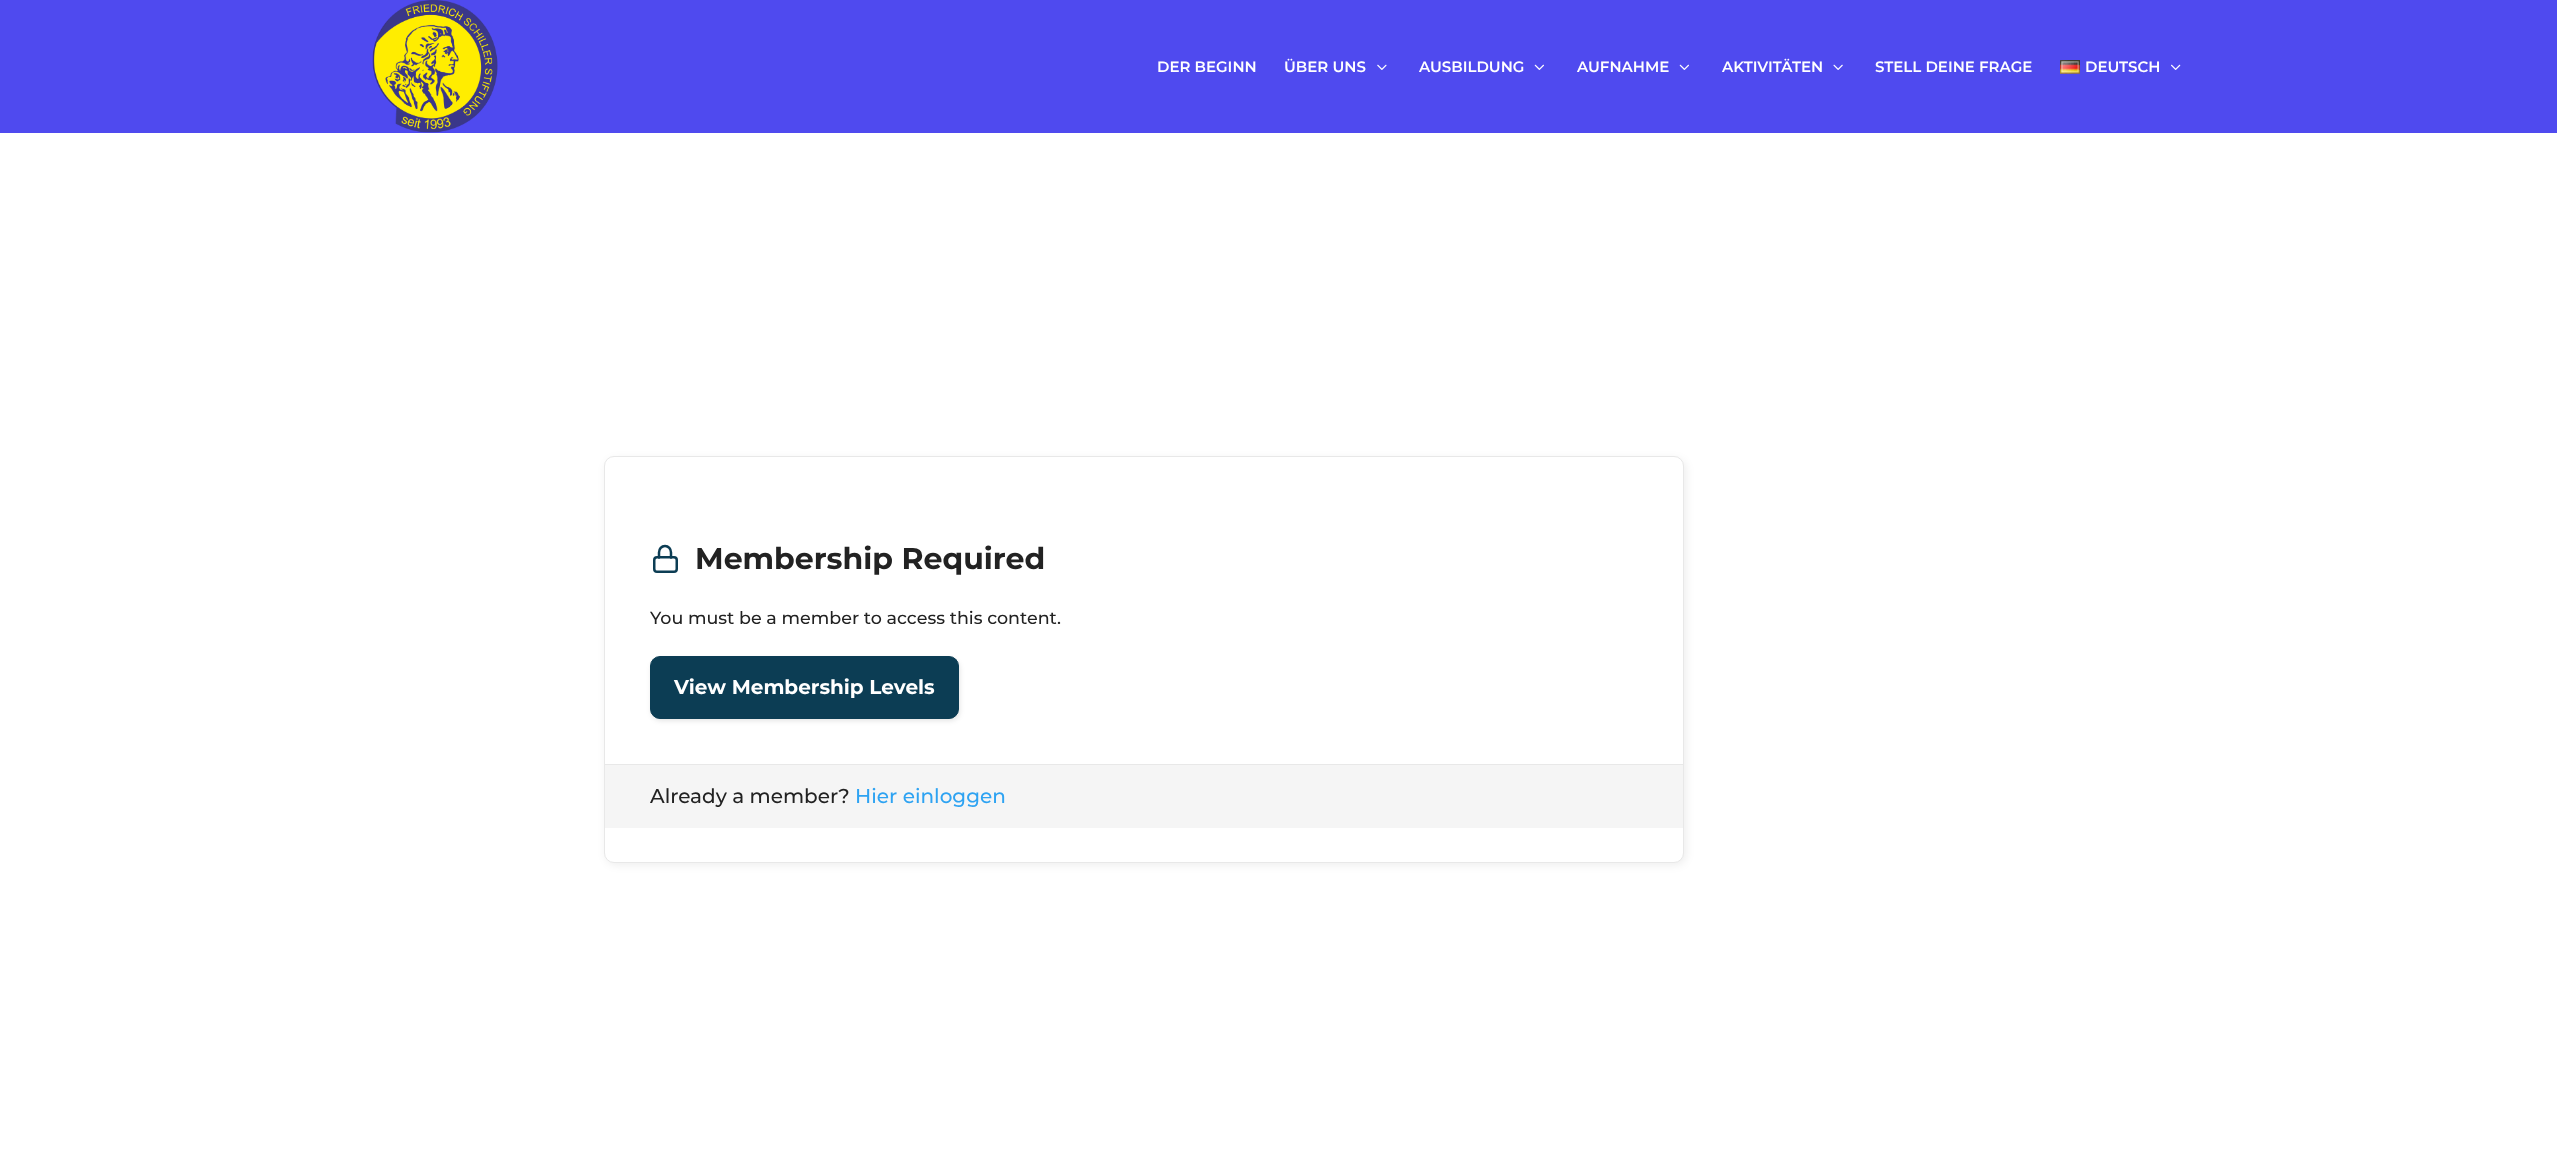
<svg xmlns="http://www.w3.org/2000/svg" xmlns:xlink="http://www.w3.org/1999/xlink" width="2557" height="1165" viewBox="0 0 2557 1165">
<style>
.cls-1{font:600 15px Montserrat;fill:#ffffff}
.cls-2{font:bold 30px Montserrat;fill:#222222}
.cls-3{font:500 17.5px Montserrat;fill:#222222}
.cls-4{font:bold 20px Montserrat;fill:#ffffff}
.cls-5{font:500 20px Montserrat;fill:#222222}
.cls-6{font:500 20px Montserrat;fill:#2ea3f2}
</style>
<rect width="100%" height="100%" fill="#ffffff"/>
<rect fill="#4f4aef" x="0" y="0" width="2557" height="133"/>
<image xlink:href="image0.png" x="372" y="0" width="126" height="133"/>
<image xlink:href="image1.png" x="1377" y="64" width="10" height="6"/>
<image xlink:href="image2.png" x="1534" y="64" width="10" height="6"/>
<image xlink:href="image2.png" x="1679" y="64" width="10" height="6"/>
<image xlink:href="image3.png" x="1833" y="64" width="10" height="6"/>
<image xlink:href="image4.png" x="2060" y="60" width="20" height="14"/>
<image xlink:href="image5.png" x="2171" y="64" width="10" height="6"/>
<rect fill="#000000" fill-opacity="0.07" filter="blur(4.5px)" x="606" y="459" width="1080" height="406" rx="10"/>
<rect fill="#ffffff" stroke="#e8e8e8" x="604.5" y="456.5" width="1079" height="406" rx="9.5"/>
<rect fill="none" stroke="#0c3d54" stroke-width="2.5" x="654.25" y="557.25" width="22.5" height="14.5" rx="2.75"/>
<path fill="none" stroke="#0c3d54" stroke-width="2.5" stroke-linecap="round" stroke-linejoin="round" d="M659 557.5V552.5C659 549 661.5 546 665 546C668.5 546 671 549 671 552.5V557.5"/>
<rect fill="#000000" fill-opacity="0.1" filter="blur(2.5px)" x="651" y="659" width="309" height="62" rx="10"/>
<rect fill="#0c3d54" stroke="#0c3d54" x="650.5" y="656.5" width="308" height="62" rx="9.5"/>
<rect fill="#f5f5f5" x="605" y="765" width="1078" height="63"/>
<rect fill="#e8e8e8" x="605" y="764" width="1078" height="1"/>
<text class="cls-1" x="1157" y="72">DER BEGINN</text>
<text class="cls-1" x="1284" y="72">ÜBER UNS</text>
<text class="cls-1" x="1419" y="72">AUSBILDUNG</text>
<text class="cls-1" x="1577" y="72">AUFNAHME</text>
<text class="cls-1" x="1722" y="72">AKTIVITÄTEN</text>
<text class="cls-1" x="1875" y="72">STELL DEINE FRAGE</text>
<text class="cls-1" x="2085" y="72">DEUTSCH</text>
<text class="cls-2" x="695" y="569">Membership Required</text>
<text class="cls-3" x="650" y="624">You must be a member to access this content.</text>
<text class="cls-4" x="674" y="694">View Membership Levels</text>
<text class="cls-5" x="650" y="803">Already a member?</text>
<text class="cls-6" x="855" y="803">Hier einloggen</text>
</svg>
